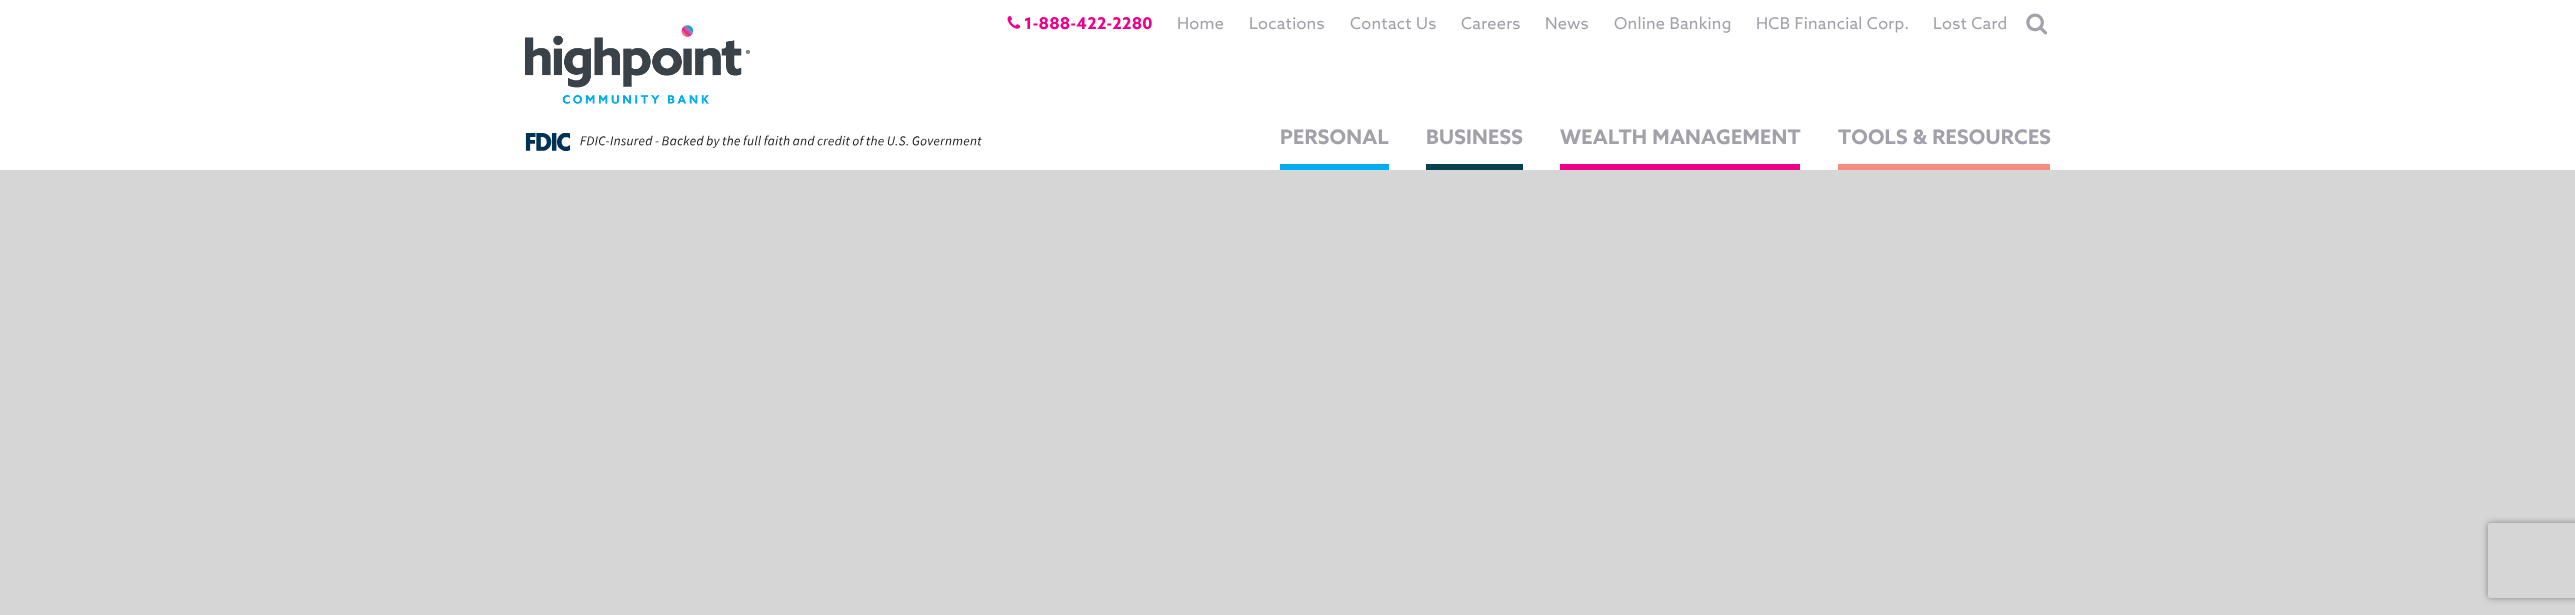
<svg xmlns="http://www.w3.org/2000/svg" xmlns:xlink="http://www.w3.org/1999/xlink" width="2575" height="615" viewBox="0 0 2575 615">
<style>
.cls-1{font:bold 16.25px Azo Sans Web;letter-spacing:0.25px;fill:#ec008c}
.cls-2{font:16.25px Azo Sans Web;letter-spacing:0.25px;fill:#a2a1aa}
.cls-3{font:bold 20px Azo Sans Web;letter-spacing:0.25px;fill:#a2a1aa}
</style>
<defs>
<clipPath id="clip1"><path d="M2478 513H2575V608H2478ZM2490.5 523H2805.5C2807 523 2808 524 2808 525.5V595.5C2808 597 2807 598 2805.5 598H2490.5C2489 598 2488 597 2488 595.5V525.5C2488 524 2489 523 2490.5 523Z" clip-rule="evenodd"/></clipPath>
</defs>
<rect width="100%" height="100%" fill="#ffffff"/>
<image xlink:href="image0.png" x="525" y="25" width="225" height="79"/>
<image xlink:href="image1.png" x="1007" y="16" width="14" height="13"/>
<image xlink:href="image2.png" x="2026" y="13" width="22" height="22"/>
<image xlink:href="image3.png" x="525" y="133" width="457" height="18"/>
<rect fill="#00aeef" x="1280" y="164" width="109" height="6"/>
<rect fill="#034251" x="1426" y="164" width="97" height="6"/>
<rect fill="#ec008c" x="1560" y="164" width="240" height="6"/>
<rect fill="#f58d7e" x="1838" y="164" width="212" height="6"/>
<rect fill="#d6d6d6" x="0" y="170" width="2575" height="445"/>
<g clip-path="url(#clip1)">
<rect fill="#808080" filter="blur(3px)" x="2488" y="523" width="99" height="75" rx="2.5"/>
</g>
<text class="cls-1" x="1024" y="29">1-888-422-2280</text>
<text class="cls-2" x="1177" y="29">Home</text>
<text class="cls-2" x="1249" y="29">Locations</text>
<text class="cls-2" x="1350" y="29">Contact Us</text>
<text class="cls-2" x="1461" y="29">Careers</text>
<text class="cls-2" x="1545" y="29">News</text>
<text class="cls-2" x="1614" y="29">Online Banking</text>
<text class="cls-2" x="1756" y="29">HCB Financial Corp.</text>
<text class="cls-2" x="1933" y="29">Lost Card</text>
<text class="cls-3" x="1280" y="144">PERSONAL</text>
<text class="cls-3" x="1426" y="144">BUSINESS</text>
<text class="cls-3" x="1560" y="144">WEALTH MANAGEMENT</text>
<text class="cls-3" x="1838" y="144">TOOLS &amp; RESOURCES</text>
</svg>
